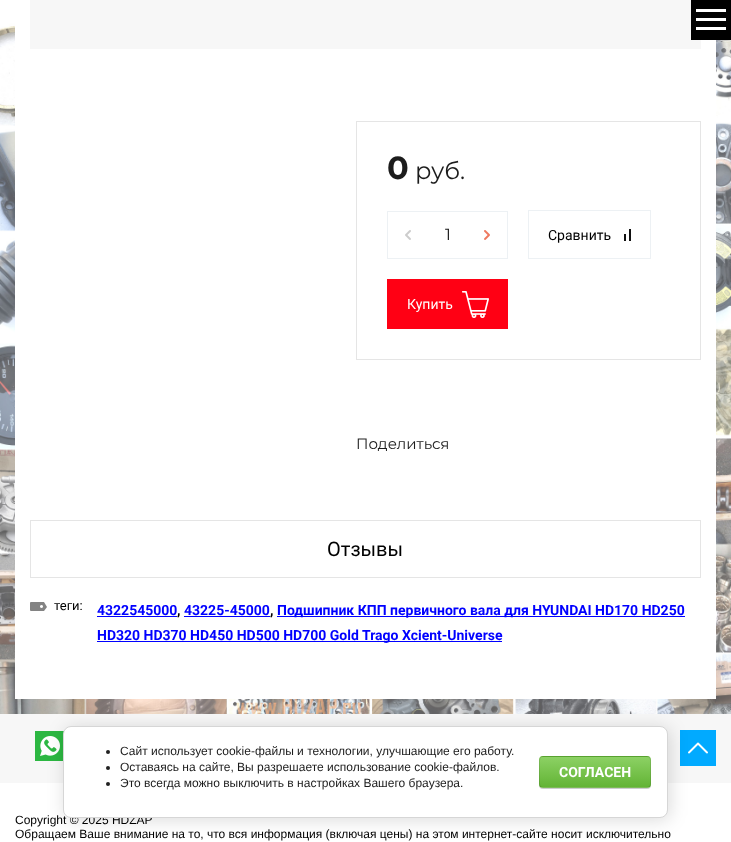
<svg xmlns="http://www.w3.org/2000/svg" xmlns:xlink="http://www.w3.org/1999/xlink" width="731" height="842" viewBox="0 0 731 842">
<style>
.cls-1{font:bold 32px Montserrat;fill:#1c1c1c}
.cls-2{font:24px Montserrat;fill:#1c1c1c}
.cls-3{font:16px Montserrat;fill:#111111}
.cls-4{font:14px Roboto;fill:#000000}
.cls-5{font:14px Roboto;fill:#ffffff}
.cls-6{font:15px Montserrat;fill:#1c1c1c}
.cls-7{font:20px Roboto;fill:#000000}
.cls-8{font:13px Roboto;fill:#000000}
.cls-9{font:bold 14px Roboto;fill:#0000ff}
.cls-10{font:bold 14px Roboto;fill:#000000}
.cls-11{font:12px Liberation Sans;fill:#000000}
.cls-12{font:12px Liberation Sans;fill:#1c1c1c}
.cls-13{font:bold 14px Roboto;fill:#ffffff}
</style>
<defs>
<clipPath id="clip1"><rect x="539" y="756" width="112" height="32" rx="4"/></clipPath>
<linearGradient id="g1" gradientUnits="userSpaceOnUse" x1="595" y1="727" x2="595" y2="757"><stop offset="0" stop-color="#8cd164"/><stop offset="1" stop-color="#63b435"/></linearGradient>
<linearGradient id="g2" gradientUnits="userSpaceOnUse" x1="595" y1="757" x2="595" y2="787"><stop offset="0" stop-color="#8cd164"/><stop offset="1" stop-color="#63b435"/></linearGradient>
<linearGradient id="g3" gradientUnits="userSpaceOnUse" x1="595" y1="787" x2="595" y2="817"><stop offset="0" stop-color="#8cd164"/><stop offset="1" stop-color="#63b435"/></linearGradient>
</defs>
<rect width="100%" height="100%" fill="#ffffff"/>
<image xlink:href="image0.png" x="0" y="0" width="731" height="714"/>
<rect fill="#ffffff" x="15" y="0" width="701" height="699"/>
<rect fill="#f7f7f7" x="30" y="0" width="671" height="49"/>
<rect fill="#000000" x="691" y="0" width="40" height="40"/>
<rect fill="#ffffff" x="696" y="9" width="30" height="3"/>
<rect fill="#ffffff" x="696" y="18" width="30" height="3"/>
<rect fill="#ffffff" x="696" y="27" width="30" height="3"/>
<rect fill="none" stroke="#e5e5e5" x="356.5" y="121.5" width="344" height="238"/>
<rect fill="none" stroke="#edf1f4" x="387.5" y="211.5" width="120" height="47"/>
<image xlink:href="image1.png" x="405" y="230" width="6" height="10"/>
<image xlink:href="image2.png" x="484" y="230" width="6" height="10"/>
<rect fill="none" stroke="#edf1f4" x="528.5" y="210.5" width="122" height="48"/>
<image xlink:href="image3.png" x="624" y="229" width="7" height="12"/>
<rect fill="#ff0014" x="387" y="279" width="121" height="50"/>
<image xlink:href="image4.png" x="462" y="291" width="27" height="27"/>
<rect fill="none" stroke="#e5e5e5" x="30.5" y="520.5" width="670" height="57"/>
<image xlink:href="image5.png" x="30" y="602" width="17" height="9"/>
<rect fill="#0000ff" x="97" y="616" width="80" height="1"/>
<rect fill="#0000ff" x="184" y="616" width="86" height="1"/>
<rect fill="#0000ff" x="277" y="616" width="408" height="1"/>
<rect fill="#0000ff" x="97" y="641" width="405" height="1"/>
<rect fill="#f7f7f7" x="0" y="714" width="731" height="69"/>
<image xlink:href="image6.png" x="35" y="731" width="29" height="30"/>
<rect fill="#01aaff" x="680" y="730" width="36" height="36"/>
<image xlink:href="image7.png" x="688" y="742" width="20" height="12"/>
<rect fill="#000000" fill-opacity="0.14" filter="blur(9px)" x="65" y="728" width="605" height="92" rx="8"/>
<text class="cls-1" x="387" y="179">0</text>
<text class="cls-2" x="415" y="179">руб.</text>
<text class="cls-3" x="445" y="240">1</text>
<text class="cls-4" x="548" y="240">Сравнить</text>
<text class="cls-5" x="407" y="309">Купить</text>
<text class="cls-6" x="356" y="449">Поделиться</text>
<text class="cls-7" x="327" y="556">Отзывы</text>
<text class="cls-8" x="54" y="610">теги:</text>
<text class="cls-9" x="97" y="615">4322545000</text>
<text class="cls-10" x="177" y="615">,</text>
<text class="cls-9" x="184" y="615">43225-45000</text>
<text class="cls-10" x="270" y="615">,</text>
<text class="cls-9" x="277" y="615">Подшипник КПП первичного вала для HYUNDAI HD170 HD250</text>
<text class="cls-9" x="97" y="640">HD320 HD370 HD450 HD500 HD700 Gold Trago Xcient-Universe</text>
<text class="cls-11"><tspan x="15" y="824">Copyright © 2025 HDZAP</tspan><tspan x="15" y="838">Обращаем Ваше внимание на то, что вся информация (включая цены) на этом интернет-сайте носит исключительно</tspan></text>
<rect fill="#ffffff" stroke="#d6d6d6" x="63.5" y="726.5" width="604" height="91" rx="7.5"/>
<circle fill="#212121" cx="108" cy="752" r="2"/>
<text class="cls-12" x="120" y="755">Сайт использует cookie-файлы и технологии, улучшающие его работу.</text>
<circle fill="#212121" cx="108" cy="768" r="2"/>
<text class="cls-12" x="120" y="771">Оставаясь на сайте, Вы разрешаете использование cookie-файлов.</text>
<circle fill="#212121" cx="108" cy="784" r="2"/>
<text class="cls-12" x="120" y="787">Это всегда можно выключить в настройках Вашего браузера.</text>
<rect fill="#000000" fill-opacity="0.2" filter="blur(0.5px)" x="539" y="757" width="112" height="32" rx="4"/>
<g clip-path="url(#clip1)">
<rect fill="url(#g1)" x="539" y="756" width="112" height="1"/>
<rect fill="url(#g2)" x="539" y="757" width="112" height="30"/>
<rect fill="url(#g3)" x="539" y="787" width="112" height="1"/>
</g>
<rect fill="none" stroke="#000000" stroke-opacity="0.1" x="539.5" y="756.5" width="111" height="31" rx="3.5"/>
<text class="cls-13" x="559" y="777">СОГЛАСЕН</text>
</svg>
